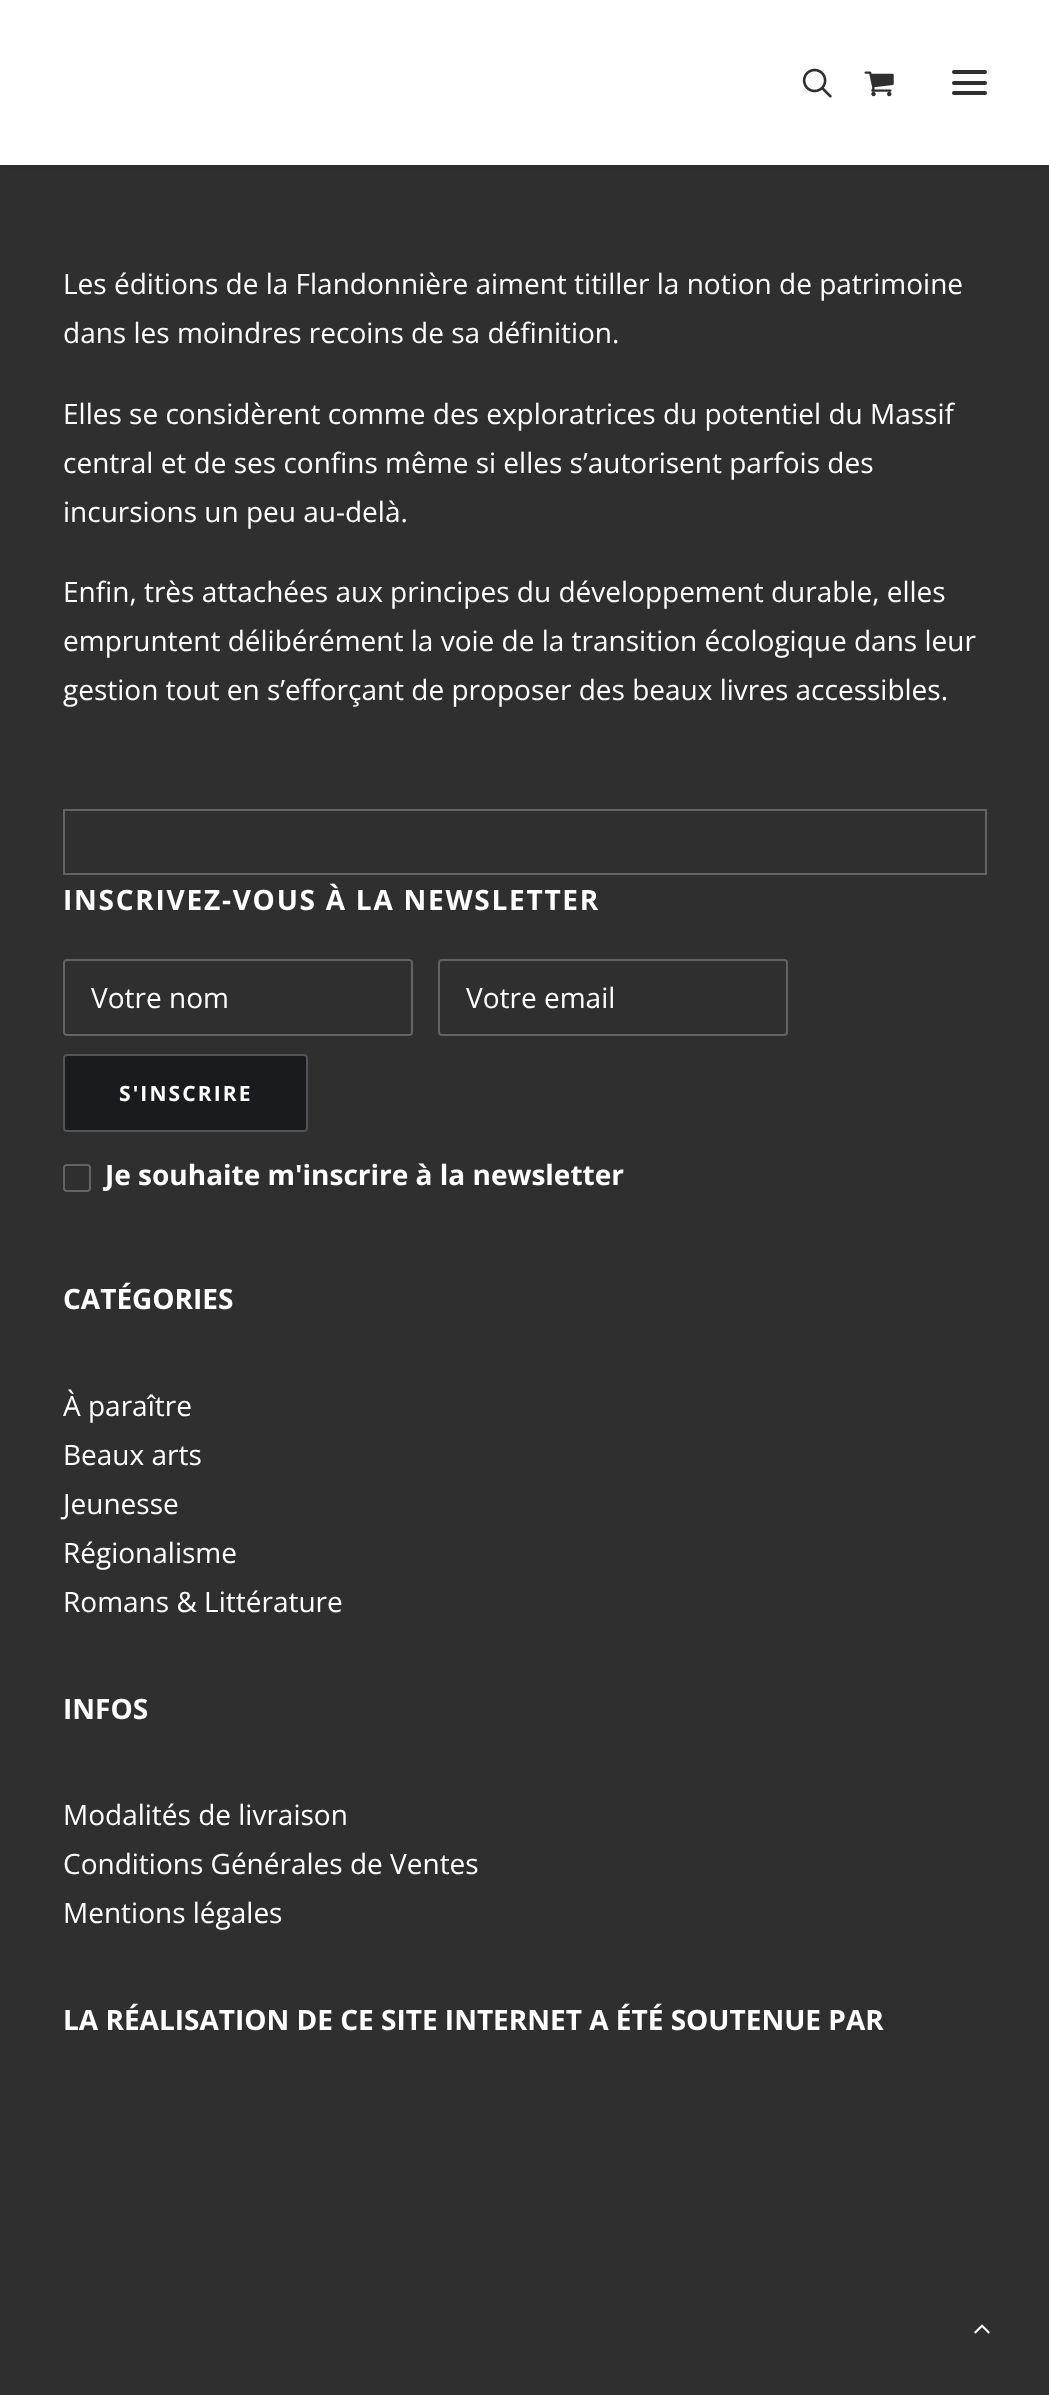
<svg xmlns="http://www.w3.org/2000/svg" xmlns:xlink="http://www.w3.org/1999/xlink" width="1049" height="2395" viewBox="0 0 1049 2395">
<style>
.cls-1{font:28px Open Sans;fill:#ffffff}
.cls-2{font:bold 28px Open Sans;letter-spacing:1.75px;fill:#ffffff}
.cls-3{font:bold 21px Open Sans;letter-spacing:2.1px;fill:#ffffff}
.cls-4{font:bold 28px Open Sans;fill:#ffffff}
</style>
<rect width="100%" height="100%" fill="#2f2f2f"/>
<rect fill="#000000" fill-opacity="0.6" filter="blur(9px)" x="18" y="25" width="1015" height="129"/>
<rect fill="#ffffff" x="0" y="0" width="1049" height="165"/>
<image xlink:href="image0.png" x="802" y="68" width="30" height="30"/>
<image xlink:href="image1.png" x="864" y="71" width="30" height="26"/>
<rect fill="#2f2f2f" x="952" y="81" width="35" height="4" rx="2"/>
<rect fill="#2f2f2f" x="952" y="70" width="35" height="4" rx="2"/>
<rect fill="#2f2f2f" x="952" y="91" width="35" height="4" rx="2"/>
<rect fill="none" stroke="#636363" stroke-width="2" x="64" y="810" width="922" height="64"/>
<rect fill="none" stroke="#636363" stroke-width="2" x="64" y="960" width="348" height="75" rx="3"/>
<rect fill="none" stroke="#636363" stroke-width="2" x="439" y="960" width="348" height="75" rx="3"/>
<rect fill="#191b1e" x="63" y="1054" width="245" height="78" rx="4"/>
<rect fill="none" stroke="#ffffff" stroke-opacity="0.25" stroke-width="2" x="64" y="1055" width="243" height="76" rx="3"/>
<rect fill="none" stroke="#636363" stroke-width="2" x="64" y="1165" width="26" height="26" rx="3"/>
<image xlink:href="image2.png" x="974" y="2324" width="16" height="10"/>
<text class="cls-1"><tspan x="63" y="294">Les éditions de la Flandonnière aiment titiller la notion de patrimoine</tspan><tspan x="63" y="343">dans les moindres recoins de sa définition.</tspan></text>
<text class="cls-1"><tspan x="63" y="424">Elles se considèrent comme des exploratrices du potentiel du Massif</tspan><tspan x="63" y="473">central et de ses confins même si elles s’autorisent parfois des</tspan><tspan x="63" y="522">incursions un peu au-delà.</tspan></text>
<text class="cls-1"><tspan x="63" y="602">Enfin, très attachées aux principes du développement durable, elles</tspan><tspan x="63" y="651">empruntent délibérément la voie de la transition écologique dans leur</tspan><tspan x="63" y="700">gestion tout en s’efforçant de proposer des beaux livres accessibles.</tspan></text>
<text class="cls-2" x="63" y="910">INSCRIVEZ-VOUS À LA NEWSLETTER</text>
<text class="cls-1" x="91" y="1008">Votre nom</text>
<text class="cls-1" x="466" y="1008">Votre email</text>
<text class="cls-3" x="119" y="1101">S'INSCRIRE</text>
<text class="cls-4" x="105" y="1185">Je souhaite m'inscrire à la newsletter</text>
<text class="cls-4" x="63" y="1309">CATÉGORIES</text>
<text class="cls-1"><tspan x="63" y="1416">À paraître</tspan><tspan x="63" y="1465">Beaux arts</tspan><tspan x="63" y="1514">Jeunesse</tspan><tspan x="63" y="1563">Régionalisme</tspan><tspan x="63" y="1612">Romans &amp; Littérature</tspan></text>
<text class="cls-4" x="63" y="1719">INFOS</text>
<text class="cls-1"><tspan x="63" y="1825">Modalités de livraison</tspan><tspan x="63" y="1874">Conditions Générales de Ventes</tspan><tspan x="63" y="1923">Mentions légales</tspan></text>
<text class="cls-4" x="63" y="2030">LA RÉALISATION DE CE SITE INTERNET A ÉTÉ SOUTENUE PAR</text>
</svg>
